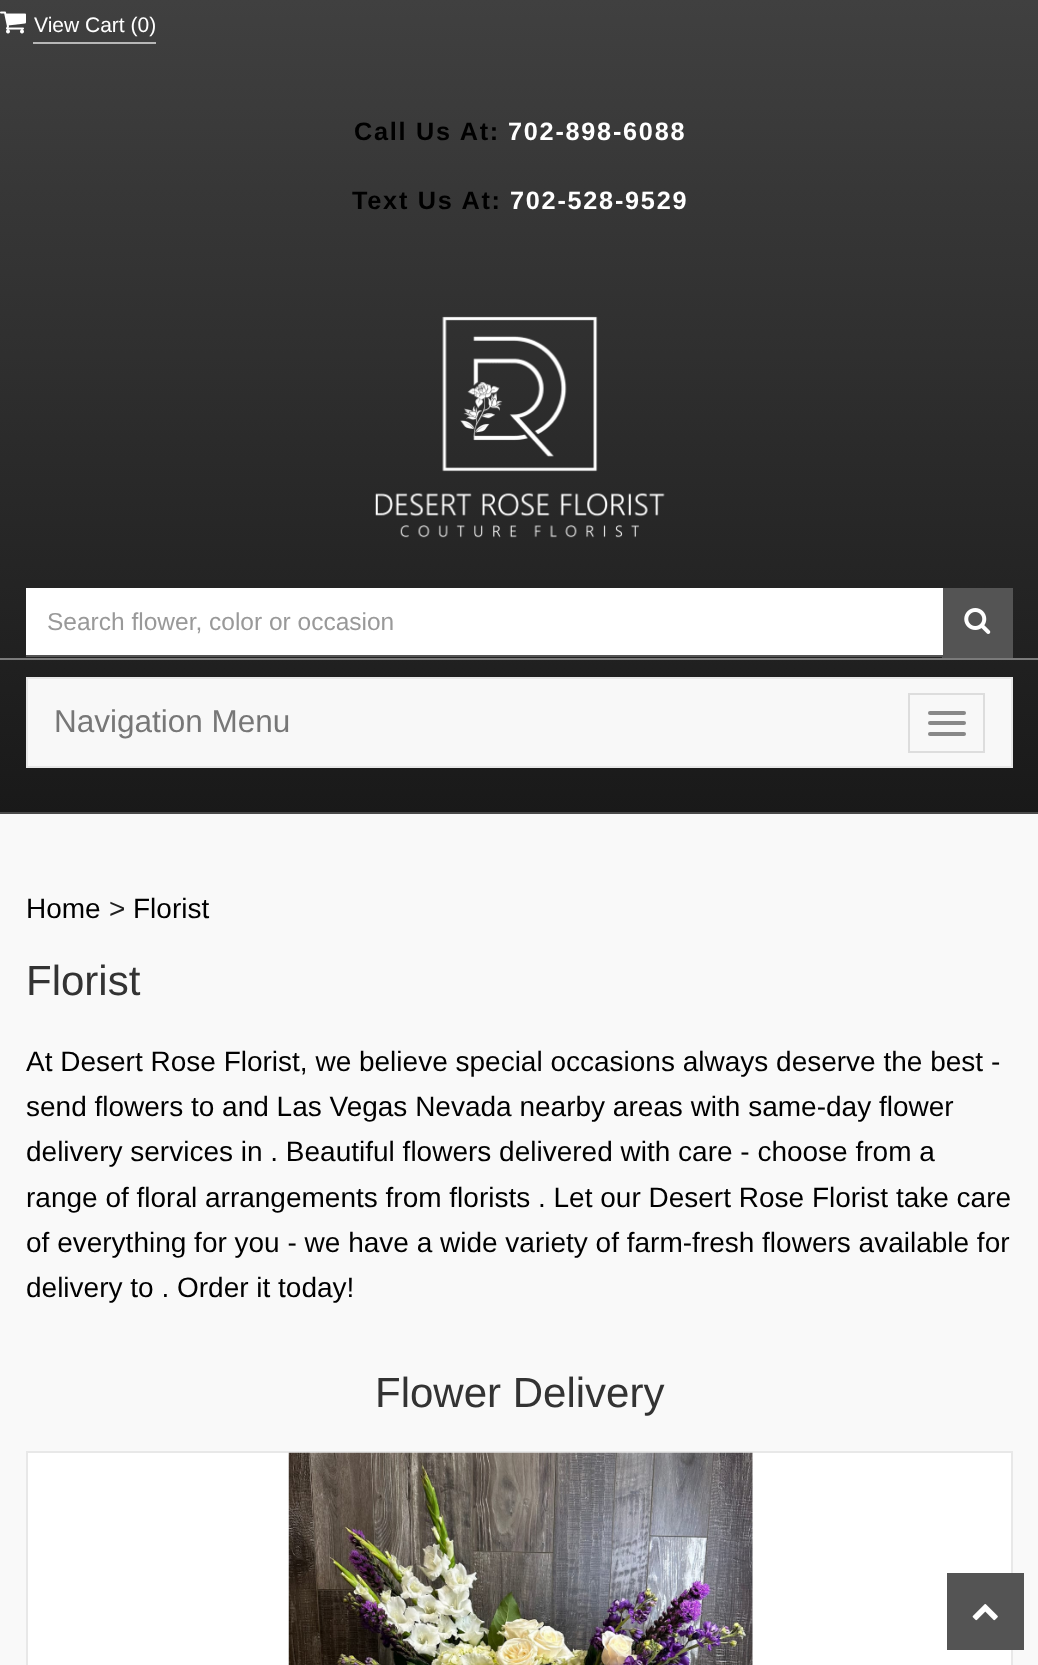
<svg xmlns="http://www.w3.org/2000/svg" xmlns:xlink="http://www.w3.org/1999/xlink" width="1038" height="1665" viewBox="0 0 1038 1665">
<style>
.cls-1{font:21px Liberation Sans;fill:#ffffff}
.cls-2{font:bold 25.25px Liberation Sans;letter-spacing:1.75px;fill:#000000}
.cls-3{font:bold 25.25px Liberation Sans;letter-spacing:1.75px;fill:#ffffff}
.cls-4{font:24.5px Liberation Sans;fill:#999999}
.cls-5{font:31.5px Liberation Sans;fill:#777777}
.cls-6{font:28px Liberation Sans;fill:#000000}
.cls-7{font:28px Liberation Sans;fill:#212121}
.cls-8{font:42px Liberation Sans;fill:#333333}
</style>
<defs>
<linearGradient id="g1" gradientUnits="userSpaceOnUse" x1="520" y1="0" x2="520" y2="814"><stop offset="0" stop-color="#404040"/><stop offset="1" stop-color="#191919"/></linearGradient>
</defs>
<rect width="100%" height="100%" fill="#f9f9f9"/>
<rect fill="url(#g1)" x="0" y="0" width="1038" height="812"/>
<rect fill="#7a7a7a" x="0" y="658" width="1038" height="2"/>
<image xlink:href="image0.png" x="0" y="11" width="26" height="23"/>
<rect fill="#b7b7b7" x="33" y="42" width="123" height="2"/>
<image xlink:href="image1.png" x="375" y="316" width="290" height="222"/>
<rect fill="#545454" x="942" y="588" width="71" height="70"/>
<rect fill="#ffffff" x="26" y="588" width="917" height="67"/>
<rect fill="#545454" x="26" y="655" width="917" height="2"/>
<image xlink:href="image2.png" x="964" y="608" width="27" height="26"/>
<rect fill="#4a4a4a" x="0" y="812" width="1038" height="2"/>
<rect fill="#f8f8f8" stroke="#e7e7e7" stroke-width="2" x="27" y="678" width="985" height="89"/>
<rect fill="none" stroke="#dddddd" stroke-width="2" x="909" y="694" width="75" height="58"/>
<rect fill="#888888" x="928" y="711" width="38" height="4" rx="2"/>
<rect fill="#888888" x="928" y="721" width="38" height="4" rx="2"/>
<rect fill="#888888" x="928" y="732" width="38" height="4" rx="2"/>
<rect fill="#ffffff" stroke="#e8e8e8" stroke-width="2" x="27" y="1452" width="985" height="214"/>
<image xlink:href="image3.png" x="288" y="1452" width="465" height="213"/>
<rect fill="#545454" x="947" y="1573" width="77" height="77"/>
<image xlink:href="image4.png" x="972" y="1604" width="26" height="17"/>
<text class="cls-1" x="34" y="32">View Cart (0)</text>
<text class="cls-2" x="354" y="140">Call Us At:</text>
<text class="cls-3" x="508" y="140">702-898-6088</text>
<text class="cls-2" x="352" y="209">Text Us At:</text>
<text class="cls-3" x="510" y="209">702-528-9529</text>
<text class="cls-4" x="47" y="630">Search flower, color or occasion</text>
<text class="cls-5" x="54" y="732">Navigation Menu</text>
<text class="cls-6" x="26" y="918">Home</text>
<text class="cls-7" x="109" y="918">&gt;</text>
<text class="cls-6" x="133" y="918">Florist</text>
<text class="cls-8" x="26" y="995">Florist</text>
<text class="cls-6"><tspan x="26" y="1071">At Desert Rose Florist, we believe special occasions always deserve the best -</tspan><tspan x="26" y="1116">send flowers to and Las Vegas Nevada nearby areas with same-day flower</tspan><tspan x="26" y="1161">delivery services in . Beautiful flowers delivered with care - choose from a</tspan><tspan x="26" y="1207">range of floral arrangements from florists . Let our Desert Rose Florist take care</tspan><tspan x="26" y="1252">of everything for you - we have a wide variety of farm-fresh flowers available for</tspan><tspan x="26" y="1297">delivery to . Order it today!</tspan></text>
<text class="cls-8" x="375" y="1407">Flower Delivery</text>
</svg>
